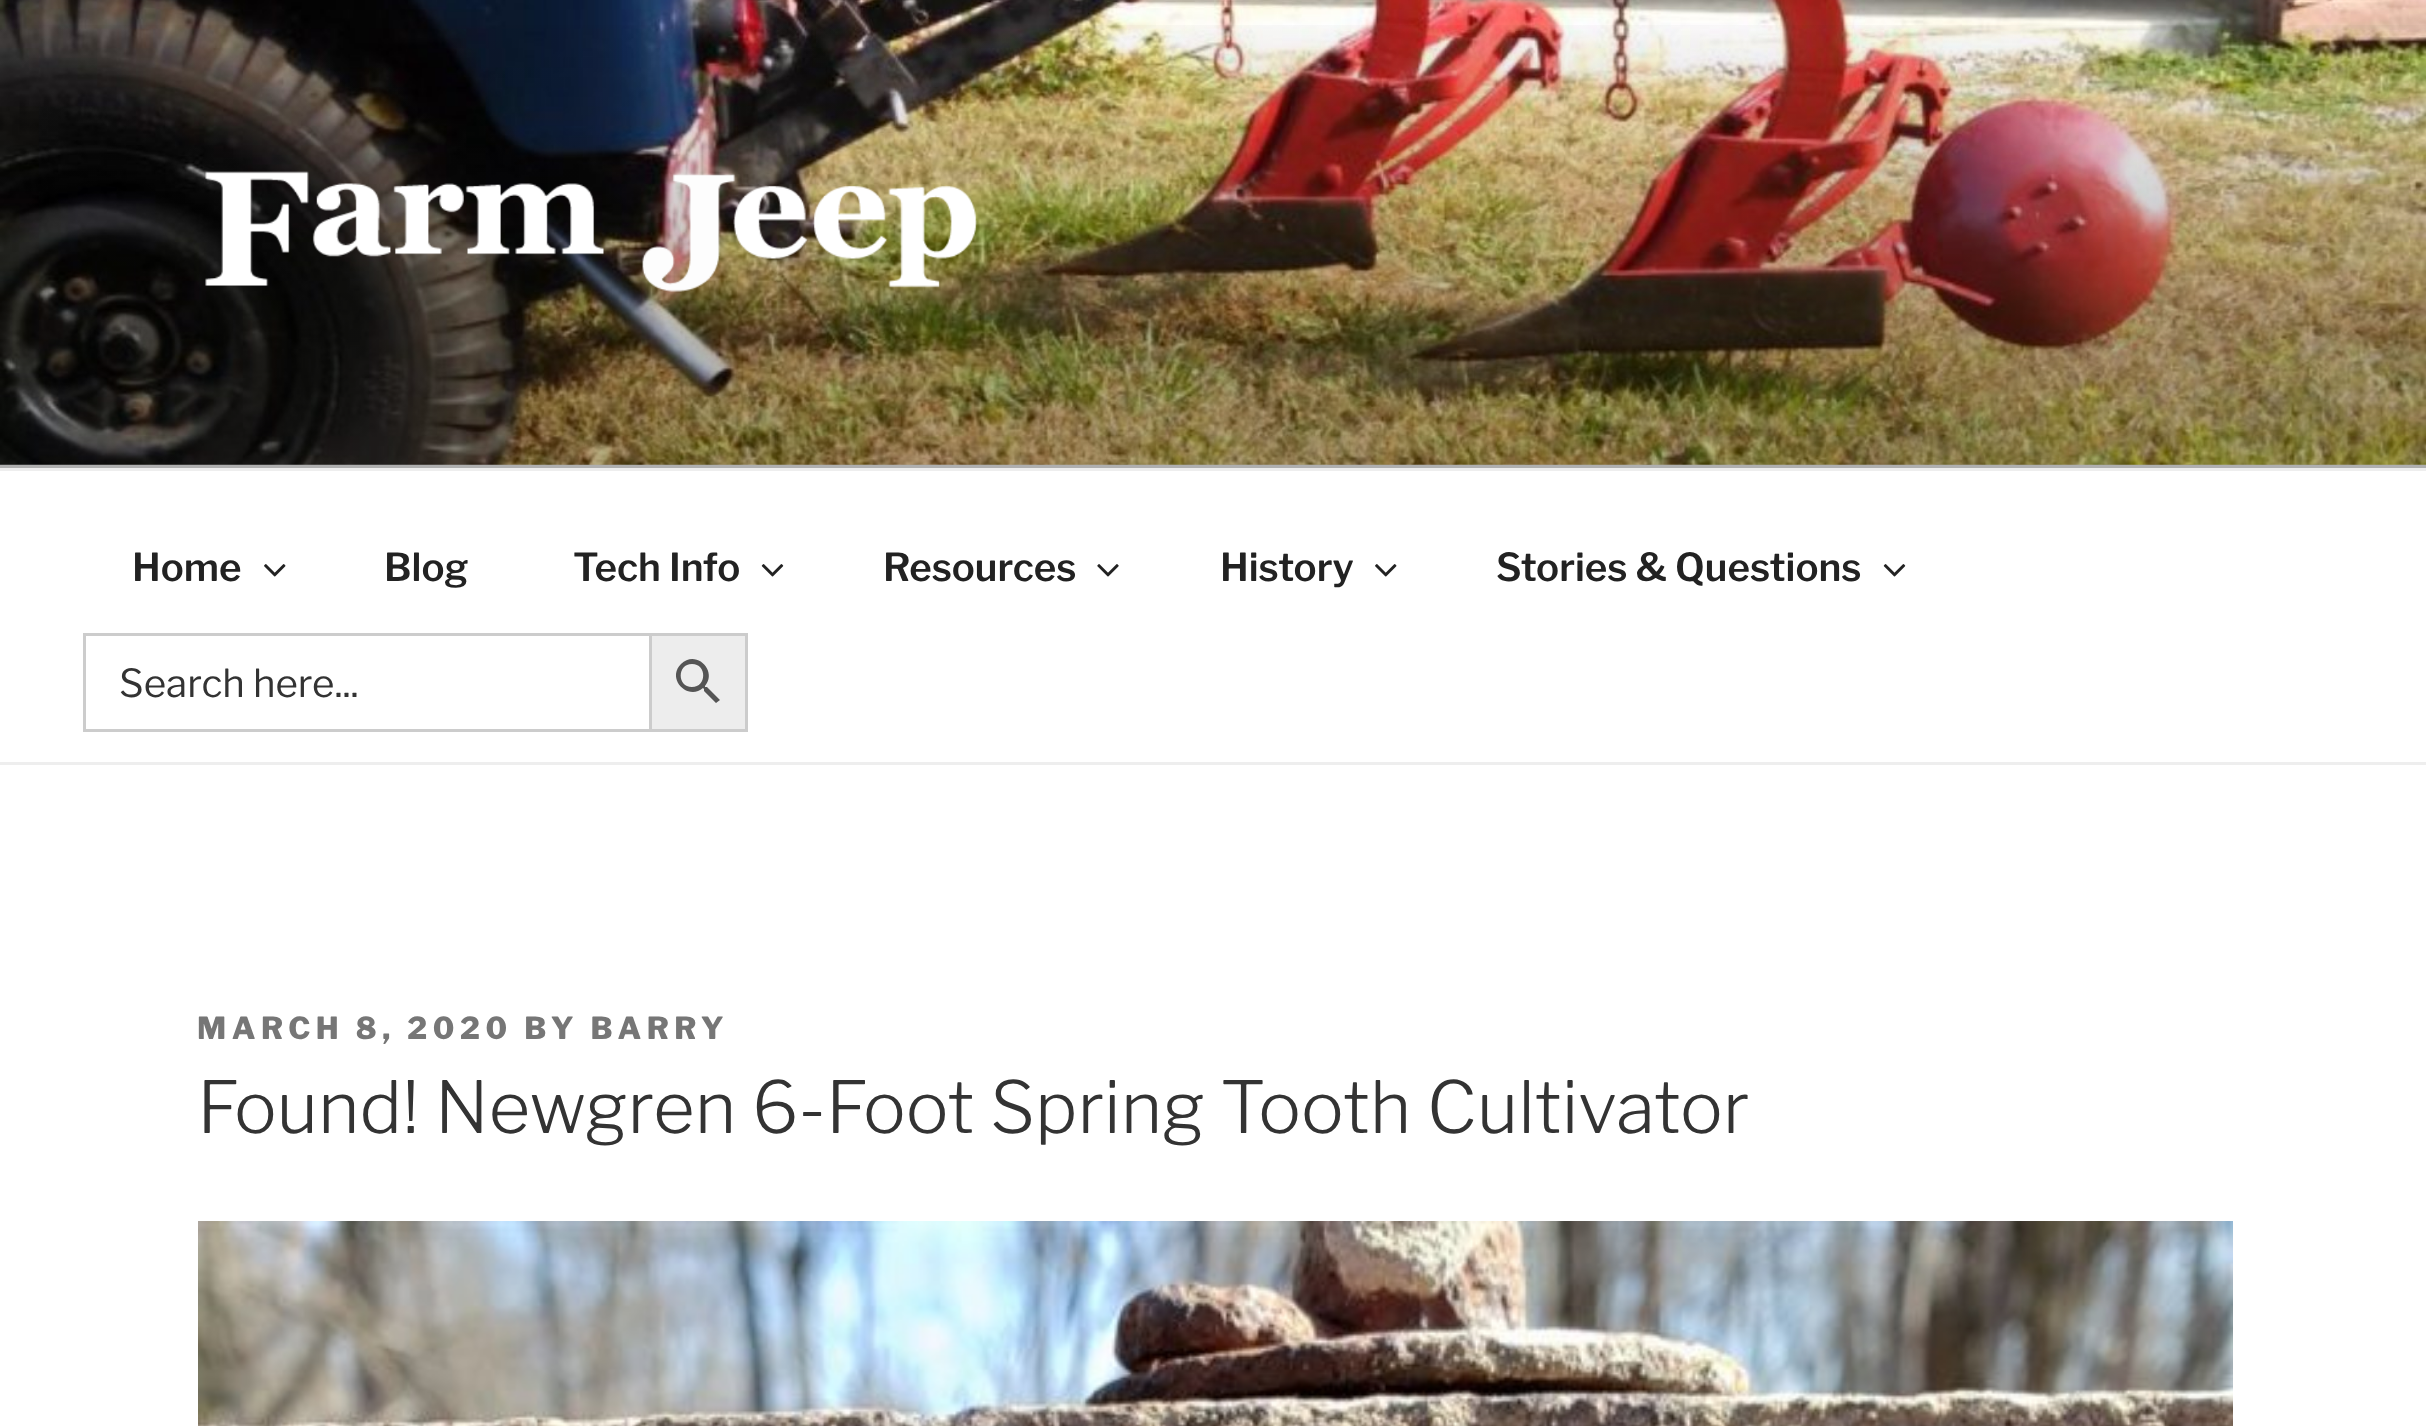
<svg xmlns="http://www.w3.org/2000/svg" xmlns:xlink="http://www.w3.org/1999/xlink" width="2426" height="1426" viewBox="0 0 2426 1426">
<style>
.cls-1{font:100 38.5px 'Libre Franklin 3';fill:#222222}
.cls-2{font:100 38.5px 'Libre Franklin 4';fill:#333333}
.cls-3{font:100 30.25px Libre Franklin;letter-spacing:5.5px;fill:#767676}
.cls-4{font:100 71.5px 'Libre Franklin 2';fill:#333333}
</style>
<defs>
<linearGradient id="g1" gradientUnits="userSpaceOnUse" x1="1214" y1="0" x2="1214" y2="468"><stop offset="0" stop-color="#000000" stop-opacity="0"/><stop offset="0.75" stop-color="#000000" stop-opacity="0.3"/><stop offset="1" stop-color="#000000" stop-opacity="0.3"/></linearGradient>
</defs>
<rect width="100%" height="100%" fill="#ffffff"/>
<rect fill="#fafafa" x="0" y="464" width="2426" height="4"/>
<image xlink:href="image0.png" x="0" y="0" width="2426" height="465"/>
<rect fill="url(#g1)" x="0" y="25" width="2426" height="443"/>
<image xlink:href="image1.png" x="205" y="171" width="773" height="121"/>
<rect fill="#eeeeee" x="0" y="468" width="2426" height="3"/>
<rect fill="#eeeeee" x="0" y="762" width="2426" height="3"/>
<image xlink:href="image2.png" x="264" y="564" width="22" height="13"/>
<image xlink:href="image3.png" x="761" y="564" width="23" height="13"/>
<image xlink:href="image4.png" x="1097" y="564" width="22" height="13"/>
<image xlink:href="image2.png" x="1375" y="564" width="22" height="13"/>
<image xlink:href="image3.png" x="1883" y="564" width="23" height="13"/>
<rect fill="#cccccc" x="83" y="633" width="566" height="3"/>
<rect fill="#cccccc" x="83" y="729" width="566" height="3"/>
<rect fill="#cccccc" x="83" y="633" width="3" height="99"/>
<rect fill="#ededed" stroke="#cccccc" stroke-width="3" x="650.5" y="634.5" width="96" height="96"/>
<path fill="#555555" d="M707 687H705V686C718 671 696 649 681 664C666 679 688 701 703 688L704 689V691L716 703L720 700ZM692 687C677 687 677 664 692 664C707 664 707 687 692 687Z"/>
<image xlink:href="image5.png" x="198" y="1221" width="2035" height="205"/>
<text class="cls-1" x="132" y="581">Home</text>
<text class="cls-1" x="384" y="581">Blog</text>
<text class="cls-1" x="573" y="581">Tech Info</text>
<text class="cls-1" x="883" y="581">Resources</text>
<text class="cls-1" x="1220" y="581">History</text>
<text class="cls-1" x="1496" y="581">Stories &amp; Questions</text>
<text class="cls-2" x="119" y="697">Search here...</text>
<text class="cls-3" x="197" y="1039">MARCH 8, 2020 BY BARRY</text>
<text class="cls-4" x="197" y="1133">Found! Newgren 6-Foot Spring Tooth Cultivator</text>
</svg>
